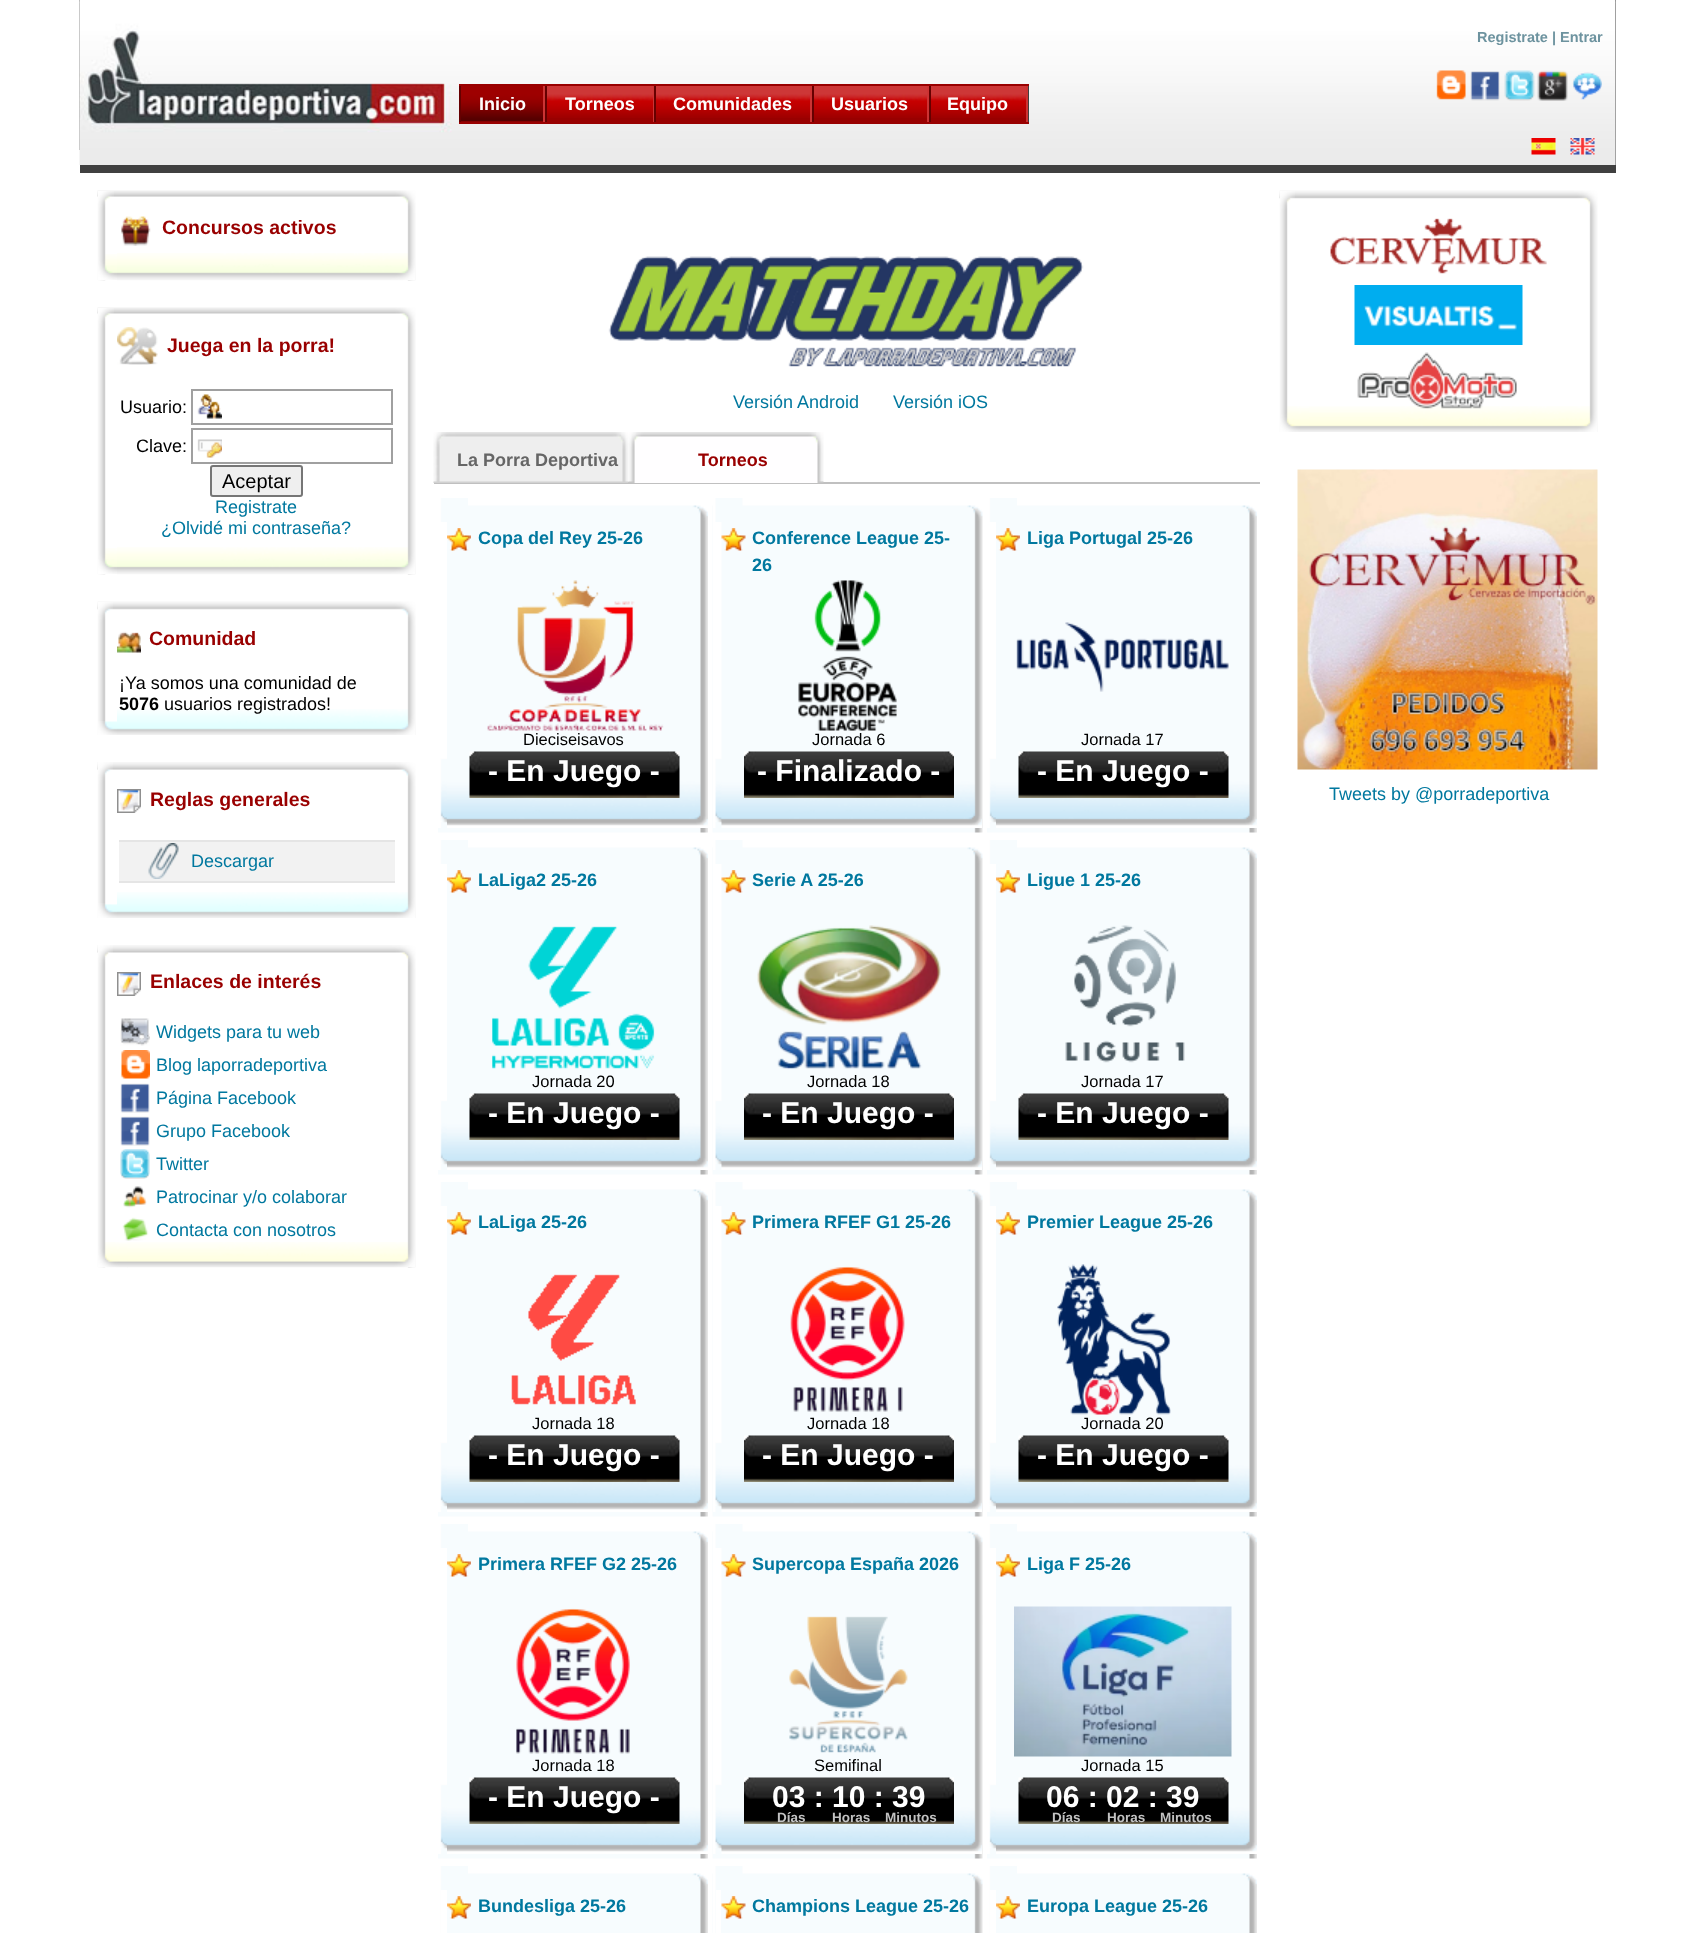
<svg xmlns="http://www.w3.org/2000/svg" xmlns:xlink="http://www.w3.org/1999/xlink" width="1695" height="1933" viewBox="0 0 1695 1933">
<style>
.cls-1{font:bold 14.5px Liberation Sans;fill:#6d939f}
.cls-2{font:bold 18px Liberation Sans;fill:#ffffff}
.cls-3{font:bold 19.5px Liberation Sans;fill:#990000}
.cls-4{font:18px Liberation Sans;fill:#000000}
.cls-5{font:20px Liberation Sans;fill:#000000}
.cls-6{font:18px Liberation Sans;fill:#00789f}
.cls-7{font:bold 18px Liberation Sans;fill:#000000}
.cls-8{font:bold 18px Liberation Sans;fill:#666666}
.cls-9{font:bold 18px Liberation Sans;fill:#990000}
.cls-10{font:bold 18px Liberation Sans;fill:#00789f}
.cls-11{font:16.5px Liberation Sans;fill:#000000}
.cls-12{font:bold 30px Liberation Sans;fill:#ffffff}
.cls-13{font:bold 13.5px Liberation Sans;fill:#c2c2c2}
</style>
<rect width="100%" height="100%" fill="#ffffff"/>
<rect fill="#595959" x="1615" y="0" width="1" height="165"/>
<image xlink:href="image0.png" x="79" y="0" width="1537" height="150"/>
<rect fill="#404040" x="80" y="165" width="1536" height="8"/>
<image xlink:href="image1.png" x="79" y="0" width="1537" height="165"/>
<image xlink:href="image2.png" x="1436" y="70" width="30" height="30"/>
<image xlink:href="image3.png" x="1470" y="71" width="30" height="30"/>
<image xlink:href="image4.png" x="1504" y="70" width="31" height="31"/>
<image xlink:href="image5.png" x="1537" y="70" width="31" height="31"/>
<image xlink:href="image6.png" x="1572" y="72" width="30" height="28"/>
<rect fill="#990000" x="547" y="118" width="479" height="4"/>
<image xlink:href="image7.png" x="547" y="86" width="479" height="32"/>
<rect fill="#990000" x="459" y="84" width="570" height="2"/>
<rect fill="#990000" x="459" y="122" width="570" height="2"/>
<rect fill="#404040" x="1028" y="86" width="1" height="36"/>
<rect fill="#990000" x="461" y="121" width="82" height="1"/>
<image xlink:href="image8.png" x="461" y="86" width="82" height="36"/>
<rect fill="#cc3333" x="543" y="86" width="2" height="36"/>
<rect fill="#660000" x="459" y="86" width="2" height="36"/>
<rect fill="#cc3333" x="653" y="86" width="1" height="36"/>
<rect fill="#660000" x="545" y="86" width="2" height="36"/>
<rect fill="#cc3333" x="810" y="86" width="2" height="36"/>
<rect fill="#660000" x="654" y="86" width="2" height="36"/>
<rect fill="#cc3333" x="927" y="86" width="2" height="36"/>
<rect fill="#660000" x="812" y="86" width="2" height="36"/>
<rect fill="#cc3333" x="1026" y="86" width="2" height="36"/>
<rect fill="#660000" x="929" y="86" width="2" height="36"/>
<image xlink:href="image9.png" x="1531" y="138" width="25" height="17"/>
<image xlink:href="image10.png" x="1570" y="138" width="25" height="17"/>
<image xlink:href="image11.png" x="97" y="190" width="319" height="91"/>
<image xlink:href="image12.png" x="97" y="191" width="17" height="90"/>
<image xlink:href="image13.png" x="98" y="254" width="19" height="26"/>
<image xlink:href="image14.png" x="117" y="253" width="298" height="28"/>
<image xlink:href="image15.png" x="121" y="216" width="30" height="30"/>
<image xlink:href="image16.png" x="97" y="307" width="319" height="268"/>
<image xlink:href="image17.png" x="97" y="308" width="17" height="267"/>
<image xlink:href="image18.png" x="98" y="548" width="19" height="26"/>
<image xlink:href="image19.png" x="117" y="547" width="298" height="28"/>
<image xlink:href="image20.png" x="117" y="327" width="41" height="38"/>
<image xlink:href="image21.png" x="197" y="394" width="25" height="25"/>
<rect fill="none" stroke="#a0a0a0" stroke-width="2" x="192" y="390" width="200" height="34"/>
<image xlink:href="image22.png" x="197" y="439" width="25" height="19"/>
<rect fill="none" stroke="#a0a0a0" stroke-width="2" x="192" y="429" width="200" height="34"/>
<rect fill="#efefef" stroke="#767676" stroke-width="2" x="211" y="466" width="91" height="30" rx="2"/>
<image xlink:href="image23.png" x="97" y="601" width="319" height="134"/>
<image xlink:href="image24.png" x="97" y="602" width="16" height="133"/>
<image xlink:href="image25.png" x="98" y="721" width="19" height="14"/>
<image xlink:href="image26.png" x="117" y="709" width="298" height="26"/>
<image xlink:href="image27.png" x="117" y="631" width="24" height="22"/>
<image xlink:href="image28.png" x="97" y="762" width="319" height="156"/>
<image xlink:href="image29.png" x="97" y="762" width="16" height="156"/>
<image xlink:href="image30.png" x="98" y="903" width="19" height="15"/>
<image xlink:href="image31.png" x="117" y="892" width="298" height="26"/>
<image xlink:href="image32.png" x="117" y="789" width="24" height="24"/>
<rect fill="#f2f2f2" x="119" y="842" width="276" height="39"/>
<image xlink:href="image33.png" x="148" y="843" width="31" height="36"/>
<rect fill="#e5e5e5" x="119" y="840" width="276" height="2"/>
<rect fill="#e5e5e5" x="119" y="881" width="276" height="2"/>
<image xlink:href="image34.png" x="97" y="945" width="319" height="323"/>
<image xlink:href="image35.png" x="97" y="945" width="16" height="323"/>
<image xlink:href="image36.png" x="98" y="1242" width="30" height="26"/>
<image xlink:href="image37.png" x="127" y="1242" width="288" height="26"/>
<image xlink:href="image32.png" x="117" y="972" width="24" height="24"/>
<image xlink:href="image38.png" x="120" y="1018" width="30" height="28"/>
<image xlink:href="image39.png" x="121" y="1050" width="29" height="29"/>
<image xlink:href="image40.png" x="120" y="1083" width="30" height="30"/>
<image xlink:href="image40.png" x="120" y="1116" width="30" height="30"/>
<image xlink:href="image41.png" x="120" y="1149" width="30" height="30"/>
<image xlink:href="image42.png" x="123" y="1186" width="24" height="22"/>
<image xlink:href="image43.png" x="122" y="1217" width="27" height="24"/>
<image xlink:href="image44.png" x="608" y="256" width="476" height="111"/>
<rect fill="#c0c0c0" x="434" y="482" width="826" height="2"/>
<image xlink:href="image45.png" x="433" y="432" width="196" height="51"/>
<image xlink:href="image46.png" x="628" y="432" width="196" height="51"/>
<image xlink:href="image47.png" x="438" y="505" width="270" height="328"/>
<image xlink:href="image48.png" x="438" y="498" width="30" height="330"/>
<image xlink:href="image49.png" x="440" y="522" width="7" height="301"/>
<image xlink:href="image50.png" x="447" y="522" width="261" height="306"/>
<image xlink:href="image51.png" x="447" y="528" width="24" height="23"/>
<image xlink:href="image52.png" x="487" y="580" width="177" height="151"/>
<image xlink:href="image53.png" x="469" y="751" width="211" height="47"/>
<image xlink:href="image54.png" x="712" y="505" width="271" height="328"/>
<image xlink:href="image55.png" x="713" y="498" width="30" height="330"/>
<image xlink:href="image56.png" x="715" y="522" width="7" height="301"/>
<image xlink:href="image57.png" x="721" y="522" width="261" height="306"/>
<image xlink:href="image58.png" x="721" y="528" width="25" height="23"/>
<image xlink:href="image59.png" x="798" y="580" width="99" height="151"/>
<image xlink:href="image60.png" x="744" y="751" width="210" height="47"/>
<image xlink:href="image47.png" x="987" y="505" width="270" height="328"/>
<image xlink:href="image48.png" x="987" y="498" width="30" height="330"/>
<image xlink:href="image61.png" x="989" y="522" width="7" height="301"/>
<image xlink:href="image50.png" x="996" y="522" width="261" height="306"/>
<image xlink:href="image62.png" x="996" y="528" width="24" height="23"/>
<image xlink:href="image63.png" x="1016" y="622" width="213" height="70"/>
<image xlink:href="image53.png" x="1018" y="751" width="211" height="47"/>
<image xlink:href="image47.png" x="438" y="847" width="270" height="328"/>
<image xlink:href="image48.png" x="438" y="840" width="30" height="330"/>
<image xlink:href="image49.png" x="440" y="864" width="7" height="301"/>
<image xlink:href="image50.png" x="447" y="864" width="261" height="306"/>
<image xlink:href="image51.png" x="447" y="870" width="24" height="23"/>
<image xlink:href="image64.png" x="492" y="926" width="163" height="143"/>
<image xlink:href="image53.png" x="469" y="1093" width="211" height="47"/>
<image xlink:href="image54.png" x="712" y="847" width="271" height="328"/>
<image xlink:href="image55.png" x="713" y="840" width="30" height="330"/>
<image xlink:href="image56.png" x="715" y="864" width="7" height="301"/>
<image xlink:href="image57.png" x="721" y="864" width="261" height="306"/>
<image xlink:href="image58.png" x="721" y="870" width="25" height="23"/>
<image xlink:href="image65.png" x="757" y="925" width="184" height="145"/>
<image xlink:href="image60.png" x="744" y="1093" width="210" height="47"/>
<image xlink:href="image47.png" x="987" y="847" width="270" height="328"/>
<image xlink:href="image48.png" x="987" y="840" width="30" height="330"/>
<image xlink:href="image61.png" x="989" y="864" width="7" height="301"/>
<image xlink:href="image50.png" x="996" y="864" width="261" height="306"/>
<image xlink:href="image62.png" x="996" y="870" width="24" height="23"/>
<image xlink:href="image66.png" x="1065" y="925" width="120" height="138"/>
<image xlink:href="image53.png" x="1018" y="1093" width="211" height="47"/>
<image xlink:href="image47.png" x="438" y="1189" width="270" height="328"/>
<image xlink:href="image48.png" x="438" y="1182" width="30" height="330"/>
<image xlink:href="image49.png" x="440" y="1206" width="7" height="301"/>
<image xlink:href="image50.png" x="447" y="1206" width="261" height="306"/>
<image xlink:href="image51.png" x="447" y="1212" width="24" height="23"/>
<image xlink:href="image67.png" x="511" y="1274" width="125" height="131"/>
<image xlink:href="image53.png" x="469" y="1435" width="211" height="47"/>
<image xlink:href="image54.png" x="712" y="1189" width="271" height="328"/>
<image xlink:href="image55.png" x="713" y="1182" width="30" height="330"/>
<image xlink:href="image56.png" x="715" y="1206" width="7" height="301"/>
<image xlink:href="image57.png" x="721" y="1206" width="261" height="306"/>
<image xlink:href="image58.png" x="721" y="1212" width="25" height="23"/>
<image xlink:href="image68.png" x="790" y="1266" width="115" height="146"/>
<image xlink:href="image60.png" x="744" y="1435" width="210" height="47"/>
<image xlink:href="image47.png" x="987" y="1189" width="270" height="328"/>
<image xlink:href="image48.png" x="987" y="1182" width="30" height="330"/>
<image xlink:href="image61.png" x="989" y="1206" width="7" height="301"/>
<image xlink:href="image50.png" x="996" y="1206" width="261" height="306"/>
<image xlink:href="image62.png" x="996" y="1212" width="24" height="23"/>
<image xlink:href="image69.png" x="1057" y="1264" width="114" height="151"/>
<image xlink:href="image53.png" x="1018" y="1435" width="211" height="47"/>
<image xlink:href="image47.png" x="438" y="1531" width="270" height="328"/>
<image xlink:href="image48.png" x="438" y="1524" width="30" height="330"/>
<image xlink:href="image49.png" x="440" y="1548" width="7" height="301"/>
<image xlink:href="image50.png" x="447" y="1548" width="261" height="306"/>
<image xlink:href="image51.png" x="447" y="1554" width="24" height="23"/>
<image xlink:href="image70.png" x="516" y="1608" width="114" height="146"/>
<image xlink:href="image53.png" x="469" y="1777" width="211" height="47"/>
<image xlink:href="image54.png" x="712" y="1531" width="271" height="328"/>
<image xlink:href="image55.png" x="713" y="1524" width="30" height="330"/>
<image xlink:href="image56.png" x="715" y="1548" width="7" height="301"/>
<image xlink:href="image57.png" x="721" y="1548" width="261" height="306"/>
<image xlink:href="image58.png" x="721" y="1554" width="25" height="23"/>
<image xlink:href="image71.png" x="789" y="1616" width="119" height="137"/>
<image xlink:href="image60.png" x="744" y="1777" width="210" height="47"/>
<image xlink:href="image47.png" x="987" y="1531" width="270" height="328"/>
<image xlink:href="image48.png" x="987" y="1524" width="30" height="330"/>
<image xlink:href="image61.png" x="989" y="1548" width="7" height="301"/>
<image xlink:href="image50.png" x="996" y="1548" width="261" height="306"/>
<image xlink:href="image62.png" x="996" y="1554" width="24" height="23"/>
<image xlink:href="image72.png" x="1014" y="1606" width="218" height="151"/>
<image xlink:href="image53.png" x="1018" y="1777" width="211" height="47"/>
<image xlink:href="image73.png" x="468" y="1873" width="240" height="60"/>
<image xlink:href="image74.png" x="438" y="1866" width="30" height="67"/>
<rect fill="#ffffff" x="441" y="1890" width="6" height="43"/>
<image xlink:href="image51.png" x="447" y="1896" width="24" height="23"/>
<image xlink:href="image75.png" x="712" y="1873" width="271" height="60"/>
<image xlink:href="image76.png" x="713" y="1866" width="30" height="67"/>
<rect fill="#ffffff" x="716" y="1890" width="5" height="43"/>
<image xlink:href="image77.png" x="721" y="1896" width="25" height="23"/>
<image xlink:href="image73.png" x="1017" y="1873" width="240" height="60"/>
<image xlink:href="image74.png" x="987" y="1866" width="30" height="67"/>
<rect fill="#ffffff" x="990" y="1890" width="6" height="43"/>
<image xlink:href="image62.png" x="996" y="1896" width="24" height="23"/>
<image xlink:href="image78.png" x="1279" y="190" width="319" height="242"/>
<image xlink:href="image79.png" x="1279" y="191" width="16" height="241"/>
<image xlink:href="image80.png" x="1280" y="406" width="29" height="26"/>
<image xlink:href="image81.png" x="1309" y="406" width="288" height="26"/>
<image xlink:href="image82.png" x="1330" y="218" width="217" height="56"/>
<image xlink:href="image83.png" x="1354" y="285" width="169" height="60"/>
<image xlink:href="image84.png" x="1357" y="352" width="160" height="57"/>
<image xlink:href="image85.png" x="1297" y="469" width="301" height="301"/>
<text class="cls-1" x="1477" y="42">Registrate | Entrar</text>
<text class="cls-2" x="479" y="110">Inicio</text>
<text class="cls-2" x="565" y="110">Torneos</text>
<text class="cls-2" x="673" y="110">Comunidades</text>
<text class="cls-2" x="831" y="110">Usuarios</text>
<text class="cls-2" x="947" y="110">Equipo</text>
<text class="cls-3" x="162" y="234">Concursos activos</text>
<text class="cls-3" x="167" y="352">Juega en la porra!</text>
<text class="cls-4" x="120" y="413">Usuario:</text>
<text class="cls-4" x="136" y="452">Clave:</text>
<text class="cls-5" x="222" y="488">Aceptar</text>
<text class="cls-6" x="215" y="513">Registrate</text>
<text class="cls-6" x="161" y="534">¿Olvidé mi contraseña?</text>
<text class="cls-3" x="149" y="645">Comunidad</text>
<text class="cls-4" x="119" y="689">¡Ya somos una comunidad de</text>
<text class="cls-7" x="119" y="710">5076</text>
<text class="cls-4" x="164" y="710">usuarios registrados!</text>
<text class="cls-3" x="150" y="806">Reglas generales</text>
<text class="cls-6" x="191" y="867">Descargar</text>
<text class="cls-3" x="150" y="988">Enlaces de interés</text>
<text class="cls-6"><tspan x="156" y="1038">Widgets para tu web</tspan><tspan x="156" y="1071">Blog laporradeportiva</tspan><tspan x="156" y="1104">Página Facebook</tspan><tspan x="156" y="1137">Grupo Facebook</tspan><tspan x="156" y="1170">Twitter</tspan><tspan x="156" y="1203">Patrocinar y/o colaborar</tspan><tspan x="156" y="1236">Contacta con nosotros</tspan></text>
<text class="cls-6" x="733" y="408">Versión Android</text>
<text class="cls-6" x="893" y="408">Versión iOS</text>
<text class="cls-8" x="457" y="466">La Porra Deportiva</text>
<text class="cls-9" x="698" y="466">Torneos</text>
<text class="cls-10" x="478" y="544">Copa del Rey 25-26</text>
<text class="cls-11" x="523" y="745">Dieciseisavos</text>
<text class="cls-12" x="488" y="781">- En Juego -</text>
<text class="cls-10"><tspan x="752" y="544">Conference League 25-</tspan><tspan x="752" y="571">26</tspan></text>
<text class="cls-11" x="812" y="745">Jornada 6</text>
<text class="cls-12" x="757" y="781">- Finalizado -</text>
<text class="cls-10" x="1027" y="544">Liga Portugal 25-26</text>
<text class="cls-11" x="1081" y="745">Jornada 17</text>
<text class="cls-12" x="1037" y="781">- En Juego -</text>
<text class="cls-10" x="478" y="886">LaLiga2 25-26</text>
<text class="cls-11" x="532" y="1087">Jornada 20</text>
<text class="cls-12" x="488" y="1123">- En Juego -</text>
<text class="cls-10" x="752" y="886">Serie A 25-26</text>
<text class="cls-11" x="807" y="1087">Jornada 18</text>
<text class="cls-12" x="762" y="1123">- En Juego -</text>
<text class="cls-10" x="1027" y="886">Ligue 1 25-26</text>
<text class="cls-11" x="1081" y="1087">Jornada 17</text>
<text class="cls-12" x="1037" y="1123">- En Juego -</text>
<text class="cls-10" x="478" y="1228">LaLiga 25-26</text>
<text class="cls-11" x="532" y="1429">Jornada 18</text>
<text class="cls-12" x="488" y="1465">- En Juego -</text>
<text class="cls-10" x="752" y="1228">Primera RFEF G1 25-26</text>
<text class="cls-11" x="807" y="1429">Jornada 18</text>
<text class="cls-12" x="762" y="1465">- En Juego -</text>
<text class="cls-10" x="1027" y="1228">Premier League 25-26</text>
<text class="cls-11" x="1081" y="1429">Jornada 20</text>
<text class="cls-12" x="1037" y="1465">- En Juego -</text>
<text class="cls-10" x="478" y="1570">Primera RFEF G2 25-26</text>
<text class="cls-11" x="532" y="1771">Jornada 18</text>
<text class="cls-12" x="488" y="1807">- En Juego -</text>
<text class="cls-10" x="752" y="1570">Supercopa España 2026</text>
<text class="cls-11" x="814" y="1771">Semifinal</text>
<text class="cls-12" x="772" y="1807">03 : 10 : 39</text>
<text class="cls-13" x="777" y="1822">Días</text>
<text class="cls-13" x="832" y="1822">Horas</text>
<text class="cls-13" x="885" y="1822">Minutos</text>
<text class="cls-10" x="1027" y="1570">Liga F 25-26</text>
<text class="cls-11" x="1081" y="1771">Jornada 15</text>
<text class="cls-12" x="1046" y="1807">06 : 02 : 39</text>
<text class="cls-13" x="1052" y="1822">Días</text>
<text class="cls-13" x="1107" y="1822">Horas</text>
<text class="cls-13" x="1160" y="1822">Minutos</text>
<text class="cls-10" x="478" y="1912">Bundesliga 25-26</text>
<text class="cls-10" x="752" y="1912">Champions League 25-26</text>
<text class="cls-10" x="1027" y="1912">Europa League 25-26</text>
<text class="cls-6" x="1329" y="800">Tweets by @porradeportiva</text>
</svg>
